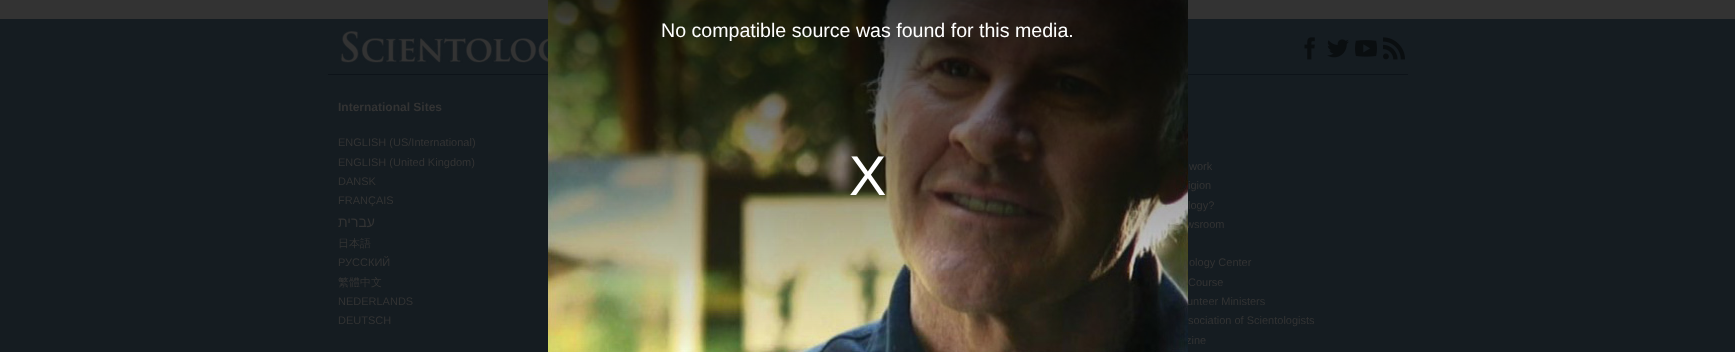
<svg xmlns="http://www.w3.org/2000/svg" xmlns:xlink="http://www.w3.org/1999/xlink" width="1735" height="352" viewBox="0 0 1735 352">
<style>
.cls-1{font:bold 12px Liberation Sans;fill:#333333}
.cls-2{font:11px Liberation Sans;fill:#333333}
.cls-3{font:14px Liberation Sans;direction:rtl;fill:#333333}
.cls-4{font:500 11px WenQuanYi Zen Hei;fill:#333333}
.cls-5{font:19.6px Liberation Sans;fill:#ffffff}
.cls-6{font:56px Liberation Sans;fill:#ffffff}
</style>
<rect width="100%" height="100%" fill="#333333"/>
<rect fill="#151c21" x="0" y="19" width="1735" height="333"/>
<image xlink:href="image1.png" x="340" y="30" width="208" height="34"/>
<image xlink:href="image2.png" x="1304" y="37" width="11" height="23"/>
<image xlink:href="image3.png" x="1327" y="39" width="22" height="19"/>
<image xlink:href="image4.png" x="1355" y="40" width="22" height="17"/>
<image xlink:href="image5.png" x="1383" y="37" width="22" height="23"/>
<rect fill="#0d1319" x="328" y="74" width="1080" height="1"/>
<text class="cls-1" x="338" y="111">International Sites</text>
<text class="cls-2"><tspan x="338" y="146">ENGLISH (US/International)</tspan><tspan x="338" y="166">ENGLISH (United Kingdom)</tspan><tspan x="338" y="185">DANSK</tspan><tspan x="338" y="204">FRANÇAIS</tspan></text>
<text class="cls-3" x="375" y="227">עברית</text>
<text class="cls-4" x="338" y="247">日本語</text>
<text class="cls-2" x="338" y="266">РУССКИЙ</text>
<text class="cls-4" x="338" y="286">繁體中文</text>
<text class="cls-2"><tspan x="338" y="305">NEDERLANDS</tspan><tspan x="338" y="324">DEUTSCH</tspan></text>
<text class="cls-2" x="1189" y="170">work</text>
<text class="cls-2"><tspan x="1188" y="189">igion</tspan><tspan x="1188" y="209">logy?</tspan></text>
<text class="cls-2" x="1186" y="228">wsroom</text>
<text class="cls-2" x="1189" y="266">ology Center</text>
<text class="cls-2" x="1188" y="286">Course</text>
<text class="cls-2" x="1187" y="305">unteer Ministers</text>
<text class="cls-2" x="1188" y="324">sociation of Scientologists</text>
<text class="cls-2" x="1186" y="344">zine</text>
<image xlink:href="image0.png" x="548" y="0" width="640" height="352"/>
<text class="cls-5" x="661" y="37">No compatible source was found for this media.</text>
<text class="cls-6" x="849" y="195">X</text>
</svg>
